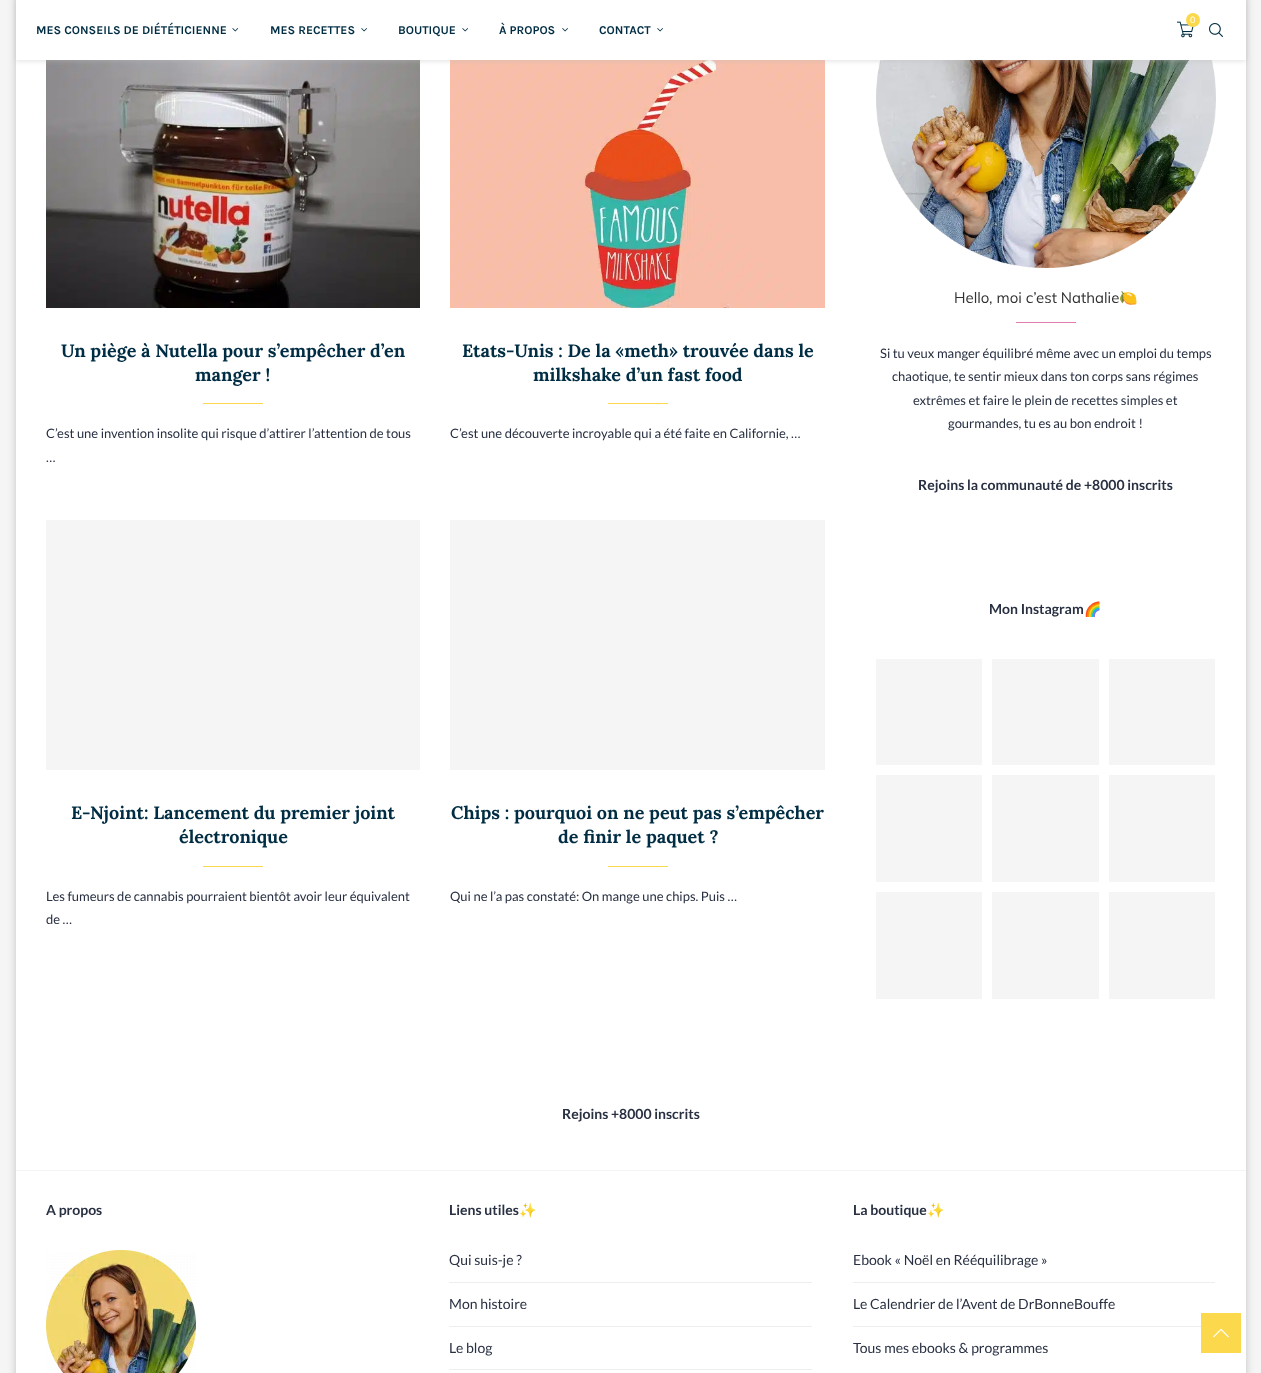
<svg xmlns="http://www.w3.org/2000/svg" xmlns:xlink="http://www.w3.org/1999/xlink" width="1261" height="1373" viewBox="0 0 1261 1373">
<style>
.cls-1{font:9px Muli;fill:#ffffff}
.cls-2{font:bold 12px Karla;fill:#002d43}
.cls-3{font:bold 18px Lora;fill:#002d43}
.cls-4{font:13px Lato;fill:#283042}
.cls-5{font:15px Muli;fill:#313131}
.cls-6{font:15px Noto Color Emoji;fill:#313131}
.cls-7{font:bold 14px Lato;fill:#283042}
.cls-8{font:bold 14px Noto Color Emoji;fill:#283042}
.cls-9{font:14px Lato;fill:#283042}
</style>
<rect width="100%" height="100%" fill="#f5f5f5"/>
<rect fill="#000000" fill-opacity="0.2" filter="blur(4px)" x="16" y="-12" width="1230" height="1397"/>
<rect fill="#ffffff" x="16" y="60" width="1230" height="1313"/>
<image xlink:href="image7.png" x="46" y="60" width="374" height="248"/>
<image xlink:href="image8.png" x="450" y="60" width="375" height="248"/>
<image xlink:href="image9.png" x="876" y="60" width="340" height="208"/>
<rect fill="#bebebe" fill-opacity="0.46" filter="blur(2.5px)" x="16" y="1" width="1230" height="60"/>
<rect fill="#ffffff" x="16" y="0" width="1230" height="60"/>
<image xlink:href="image0.png" x="1177" y="21" width="17" height="17"/>
<circle fill="#fbd84c" cx="1193" cy="20" r="7"/>
<image xlink:href="image1.png" x="232" y="28" width="7" height="4"/>
<image xlink:href="image2.png" x="361" y="28" width="6" height="4"/>
<image xlink:href="image3.png" x="462" y="28" width="6" height="4"/>
<image xlink:href="image4.png" x="562" y="28" width="6" height="4"/>
<image xlink:href="image5.png" x="657" y="28" width="6" height="4"/>
<image xlink:href="image6.png" x="1209" y="23" width="14" height="14"/>
<rect fill="#fbd84c" x="203" y="403" width="60" height="1"/>
<rect fill="#fbd84c" x="608" y="403" width="60" height="1"/>
<rect fill="#f5f5f5" x="46" y="520" width="374" height="250"/>
<rect fill="#fbd84c" x="203" y="866" width="60" height="1"/>
<rect fill="#f5f5f5" x="450" y="520" width="375" height="250"/>
<rect fill="#fbd84c" x="608" y="866" width="60" height="1"/>
<rect fill="#e17cb0" x="1016" y="322" width="60" height="1"/>
<rect fill="#f5f5f5" x="876" y="659" width="106" height="106"/>
<rect fill="#f5f5f5" x="992" y="659" width="107" height="106"/>
<rect fill="#f5f5f5" x="1109" y="659" width="106" height="106"/>
<rect fill="#f5f5f5" x="876" y="775" width="106" height="107"/>
<rect fill="#f5f5f5" x="992" y="775" width="107" height="107"/>
<rect fill="#f5f5f5" x="1109" y="775" width="106" height="107"/>
<rect fill="#f5f5f5" x="876" y="892" width="106" height="107"/>
<rect fill="#f5f5f5" x="992" y="892" width="107" height="107"/>
<rect fill="#f5f5f5" x="1109" y="892" width="106" height="107"/>
<rect fill="#f4f4f4" x="16" y="1170" width="1230" height="1"/>
<image xlink:href="image10.png" x="46" y="1250" width="150" height="123"/>
<rect fill="#eeeeee" x="449" y="1282" width="363" height="1"/>
<rect fill="#eeeeee" x="449" y="1326" width="363" height="1"/>
<rect fill="#eeeeee" x="449" y="1369" width="363" height="1"/>
<rect fill="#eeeeee" x="853" y="1282" width="362" height="1"/>
<rect fill="#eeeeee" x="853" y="1326" width="348" height="1"/>
<rect fill="#fbd84c" x="1201" y="1313" width="40" height="40"/>
<image xlink:href="image11.png" x="1213" y="1328" width="16" height="10"/>
<text class="cls-1" x="1190" y="23">0</text>
<text class="cls-2" x="36" y="34">MES CONSEILS DE DIÉTÉTICIENNE</text>
<text class="cls-2" x="270" y="34">MES RECETTES</text>
<text class="cls-2" x="398" y="34">BOUTIQUE</text>
<text class="cls-2" x="499" y="34">À PROPOS</text>
<text class="cls-2" x="599" y="34">CONTACT</text>
<text class="cls-3" x="61" y="357">Un piège à Nutella pour s’empêcher d’en</text>
<text class="cls-3" x="195" y="381">manger !</text>
<text class="cls-4"><tspan x="46" y="438">C’est une invention insolite qui risque d’attirer l’attention de tous</tspan><tspan x="46" y="462">…</tspan></text>
<text class="cls-3" x="462" y="357">Etats-Unis : De la «meth» trouvée dans le</text>
<text class="cls-3" x="533" y="381">milkshake d’un fast food</text>
<text class="cls-4" x="450" y="438">C’est une découverte incroyable qui a été faite en Californie, …</text>
<text class="cls-3" x="71" y="819">E-Njoint: Lancement du premier joint</text>
<text class="cls-3" x="179" y="843">électronique</text>
<text class="cls-4"><tspan x="46" y="901">Les fumeurs de cannabis pourraient bientôt avoir leur équivalent</tspan><tspan x="46" y="924">de …</tspan></text>
<text class="cls-3" x="451" y="819">Chips : pourquoi on ne peut pas s’empêcher</text>
<text class="cls-3" x="558" y="843">de finir le paquet ?</text>
<text class="cls-4" x="450" y="901">Qui ne l’a pas constaté: On mange une chips. Puis …</text>
<text class="cls-5" x="954" y="303">Hello, moi c’est Nathalie</text>
<text class="cls-6" x="1119" y="303">🍋</text>
<text class="cls-4" x="880" y="358">Si tu veux manger équilibré même avec un emploi du temps</text>
<text class="cls-4" x="892" y="381">chaotique, te sentir mieux dans ton corps sans régimes</text>
<text class="cls-4" x="913" y="405">extrêmes et faire le plein de recettes simples et</text>
<text class="cls-4" x="948" y="428">gourmandes, tu es au bon endroit !</text>
<text class="cls-7" x="918" y="490">Rejoins la communauté de +8000 inscrits</text>
<text class="cls-7" x="989" y="614">Mon Instagram</text>
<text class="cls-8" x="1084" y="614">🌈</text>
<text class="cls-7" x="562" y="1119">Rejoins +8000 inscrits</text>
<text class="cls-7" x="46" y="1215">A propos</text>
<text class="cls-7" x="449" y="1215">Liens utiles</text>
<text class="cls-8" x="519" y="1215">✨</text>
<text class="cls-9" x="449" y="1265">Qui suis-je ?</text>
<text class="cls-9" x="449" y="1309">Mon histoire</text>
<text class="cls-9" x="449" y="1353">Le blog</text>
<text class="cls-7" x="853" y="1215">La boutique</text>
<text class="cls-8" x="927" y="1215">✨</text>
<text class="cls-9" x="853" y="1265">Ebook « Noël en Rééquilibrage »</text>
<text class="cls-9" x="853" y="1309">Le Calendrier de l’Avent de DrBonneBouffe</text>
<text class="cls-9" x="853" y="1353">Tous mes ebooks &amp; programmes</text>
</svg>
